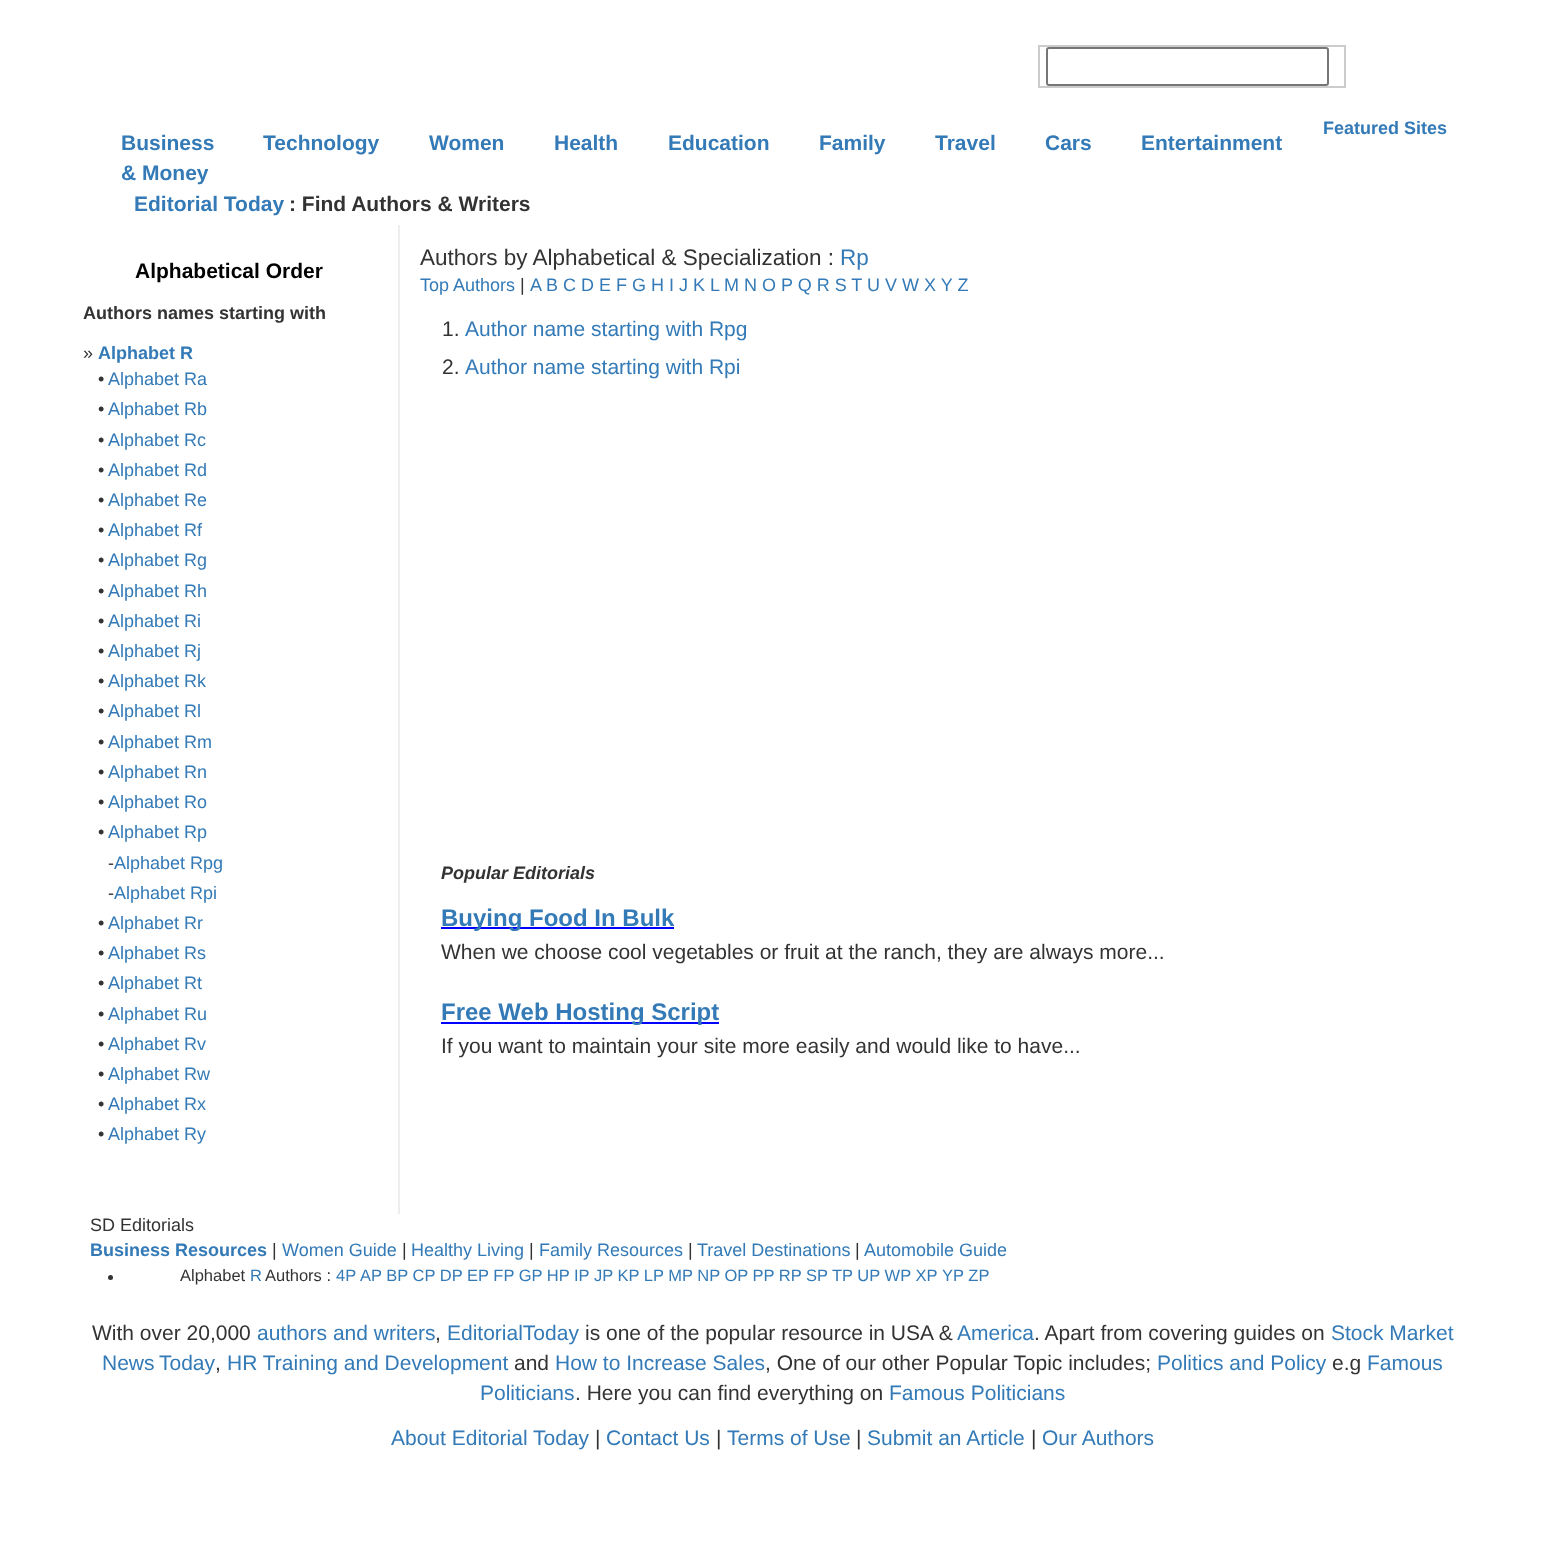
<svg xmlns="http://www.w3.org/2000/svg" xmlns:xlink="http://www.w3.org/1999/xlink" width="1545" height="1550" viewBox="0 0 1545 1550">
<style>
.cls-1{font:bold 18px Liberation Sans;fill:#337ab7}
.cls-2{font:bold 21px Liberation Sans;fill:#337ab7}
.cls-3{font:bold 21px Liberation Sans;fill:#333333}
.cls-4{font:bold 21px Liberation Sans;fill:#000000}
.cls-5{font:bold 18px Liberation Sans;fill:#333333}
.cls-6{font:18px Liberation Sans;fill:#333333}
.cls-7{font:18px Liberation Sans;fill:#337ab7}
.cls-8{font:22.5px Liberation Sans;fill:#333333}
.cls-9{font:22.5px Liberation Sans;fill:#337ab7}
.cls-10{font:21px Liberation Sans;fill:#333333}
.cls-11{font:21px Liberation Sans;fill:#337ab7}
.cls-12{font:italic bold 18px Liberation Sans;fill:#333333}
.cls-13{font:bold 24px Liberation Sans;fill:#337ab7}
.cls-14{font:16.5px Liberation Sans;fill:#333333}
.cls-15{font:16.5px Liberation Sans;fill:#337ab7}
</style>
<rect width="100%" height="100%" fill="#ffffff"/>
<rect fill="#cccccc" x="1038" y="45" width="308" height="2"/>
<rect fill="#cccccc" x="1344" y="45" width="2" height="42"/>
<rect fill="#cccccc" x="1038" y="86" width="308" height="2"/>
<rect fill="#cccccc" x="1038" y="45" width="2" height="42"/>
<rect fill="none" stroke="#767676" stroke-width="2" x="1047" y="48" width="281" height="37" rx="2"/>
<rect fill="#eeeeee" x="398" y="225" width="2" height="989"/>
<rect fill="#0000ff" x="441" y="927" width="233" height="2"/>
<rect fill="#0000ff" x="441" y="1022" width="278" height="2"/>
<circle fill="#333333" cx="110.5" cy="1277.5" r="2.5"/>
<text class="cls-1" x="1323" y="134">Featured Sites</text>
<text class="cls-2"><tspan x="121" y="150">Business</tspan><tspan x="121" y="180">&amp; Money</tspan></text>
<text class="cls-2" x="263" y="150">Technology</text>
<text class="cls-2" x="429" y="150">Women</text>
<text class="cls-2" x="554" y="150">Health</text>
<text class="cls-2" x="668" y="150">Education</text>
<text class="cls-2" x="819" y="150">Family</text>
<text class="cls-2" x="935" y="150">Travel</text>
<text class="cls-2" x="1045" y="150">Cars</text>
<text class="cls-2" x="1141" y="150">Entertainment</text>
<text class="cls-2" x="134" y="211">Editorial Today</text>
<text class="cls-3" x="289" y="211">: Find Authors &amp; Writers</text>
<text class="cls-4" x="135" y="278">Alphabetical Order</text>
<text class="cls-5" x="83" y="319">Authors names starting with</text>
<text class="cls-6" x="83" y="359">»</text>
<text class="cls-1" x="98" y="359">Alphabet R</text>
<text class="cls-6" x="98" y="385">•</text>
<text class="cls-7" x="108" y="385">Alphabet Ra</text>
<text class="cls-6" x="98" y="415">•</text>
<text class="cls-7" x="108" y="415">Alphabet Rb</text>
<text class="cls-6" x="98" y="446">•</text>
<text class="cls-7" x="108" y="446">Alphabet Rc</text>
<text class="cls-6" x="98" y="476">•</text>
<text class="cls-7" x="108" y="476">Alphabet Rd</text>
<text class="cls-6" x="98" y="506">•</text>
<text class="cls-7" x="108" y="506">Alphabet Re</text>
<text class="cls-6" x="98" y="536">•</text>
<text class="cls-7" x="108" y="536">Alphabet Rf</text>
<text class="cls-6" x="98" y="566">•</text>
<text class="cls-7" x="108" y="566">Alphabet Rg</text>
<text class="cls-6" x="98" y="597">•</text>
<text class="cls-7" x="108" y="597">Alphabet Rh</text>
<text class="cls-6" x="98" y="627">•</text>
<text class="cls-7" x="108" y="627">Alphabet Ri</text>
<text class="cls-6" x="98" y="657">•</text>
<text class="cls-7" x="108" y="657">Alphabet Rj</text>
<text class="cls-6" x="98" y="687">•</text>
<text class="cls-7" x="108" y="687">Alphabet Rk</text>
<text class="cls-6" x="98" y="717">•</text>
<text class="cls-7" x="108" y="717">Alphabet Rl</text>
<text class="cls-6" x="98" y="748">•</text>
<text class="cls-7" x="108" y="748">Alphabet Rm</text>
<text class="cls-6" x="98" y="778">•</text>
<text class="cls-7" x="108" y="778">Alphabet Rn</text>
<text class="cls-6" x="98" y="808">•</text>
<text class="cls-7" x="108" y="808">Alphabet Ro</text>
<text class="cls-6" x="98" y="838">•</text>
<text class="cls-7" x="108" y="838">Alphabet Rp</text>
<text class="cls-6" x="108" y="869">-</text>
<text class="cls-7" x="114" y="869">Alphabet Rpg</text>
<text class="cls-6" x="108" y="899">-</text>
<text class="cls-7" x="114" y="899">Alphabet Rpi</text>
<text class="cls-6" x="98" y="929">•</text>
<text class="cls-7" x="108" y="929">Alphabet Rr</text>
<text class="cls-6" x="98" y="959">•</text>
<text class="cls-7" x="108" y="959">Alphabet Rs</text>
<text class="cls-6" x="98" y="989">•</text>
<text class="cls-7" x="108" y="989">Alphabet Rt</text>
<text class="cls-6" x="98" y="1020">•</text>
<text class="cls-7" x="108" y="1020">Alphabet Ru</text>
<text class="cls-6" x="98" y="1050">•</text>
<text class="cls-7" x="108" y="1050">Alphabet Rv</text>
<text class="cls-6" x="98" y="1080">•</text>
<text class="cls-7" x="108" y="1080">Alphabet Rw</text>
<text class="cls-6" x="98" y="1110">•</text>
<text class="cls-7" x="108" y="1110">Alphabet Rx</text>
<text class="cls-6" x="98" y="1140">•</text>
<text class="cls-7" x="108" y="1140">Alphabet Ry</text>
<text class="cls-8" x="420" y="265">Authors by Alphabetical &amp; Specialization :</text>
<text class="cls-9" x="840" y="265">Rp</text>
<text class="cls-7" x="420" y="291">Top Authors</text>
<text class="cls-6" x="520" y="291">|</text>
<text class="cls-7" x="530" y="291">A</text>
<text class="cls-7" x="546" y="291">B C D E F G H I J K L</text>
<text class="cls-7" x="724" y="291">M N O P Q R S T U V W X Y Z</text>
<text class="cls-10" x="442" y="336">1.</text>
<text class="cls-11" x="465" y="336">Author name starting with Rpg</text>
<text class="cls-10" x="442" y="374">2.</text>
<text class="cls-11" x="465" y="374">Author name starting with Rpi</text>
<text class="cls-12" x="441" y="879">Popular Editorials</text>
<text class="cls-13" x="441" y="926">Buying Food In Bulk</text>
<text class="cls-10" x="441" y="959">When we choose cool vegetables or fruit at the ranch, they are always more...</text>
<text class="cls-13" x="441" y="1020">Free Web Hosting Script</text>
<text class="cls-10" x="441" y="1053">If you want to maintain your site more easily and would like to have...</text>
<text class="cls-6" x="90" y="1231">SD Editorials</text>
<text class="cls-1" x="90" y="1256">Business Resources</text>
<text class="cls-6" x="272" y="1256">|</text>
<text class="cls-7" x="282" y="1256">Women Guide</text>
<text class="cls-6" x="402" y="1256">|</text>
<text class="cls-7" x="411" y="1256">Healthy Living</text>
<text class="cls-6" x="529" y="1256">|</text>
<text class="cls-7" x="539" y="1256">Family Resources</text>
<text class="cls-6" x="688" y="1256">|</text>
<text class="cls-7" x="697" y="1256">Travel Destinations</text>
<text class="cls-6" x="855" y="1256">|</text>
<text class="cls-7" x="864" y="1256">Automobile Guide</text>
<text class="cls-14" x="180" y="1281">Alphabet</text>
<text class="cls-15" x="250" y="1281">R</text>
<text class="cls-14" x="265" y="1281">Authors :</text>
<text class="cls-15" x="336" y="1281">4P</text>
<text class="cls-15" x="360" y="1281">AP BP CP DP EP FP GP HP IP JP KP LP MP NP OP PP RP SP</text>
<text class="cls-15" x="832" y="1281">TP UP WP XP</text>
<text class="cls-15" x="942" y="1281">YP ZP</text>
<text class="cls-10" x="92" y="1340">With over 20,000</text>
<text class="cls-11" x="257" y="1340">authors and writers</text>
<text class="cls-10" x="435" y="1340">,</text>
<text class="cls-11" x="447" y="1340">EditorialToday</text>
<text class="cls-10" x="585" y="1340">is</text>
<text class="cls-10" x="606" y="1340">one of the popular resource in USA &amp;</text>
<text class="cls-11" x="957" y="1340">America</text>
<text class="cls-10" x="1034" y="1340">. Apart from covering guides on</text>
<text class="cls-11" x="1331" y="1340">Stock Market</text>
<text class="cls-11" x="102" y="1370" word-spacing="-1">News Today</text>
<text class="cls-10" x="215" y="1370">,</text>
<text class="cls-11" x="227" y="1370">HR Training and Development</text>
<text class="cls-10" x="514" y="1370">and</text>
<text class="cls-11" x="555" y="1370">How to Increase Sales</text>
<text class="cls-10" x="765" y="1370">, One of our other Popular Topic includes;</text>
<text class="cls-11" x="1157" y="1370">Politics and Policy</text>
<text class="cls-10" x="1332" y="1370">e.g</text>
<text class="cls-11" x="1367" y="1370">Famous</text>
<text class="cls-11" x="480" y="1400">Politicians</text>
<text class="cls-10" x="575" y="1400">. Here you can find everything on</text>
<text class="cls-11" x="889" y="1400">Famous Politicians</text>
<text class="cls-11" x="391" y="1445">About Editorial Today</text>
<text class="cls-10" x="595" y="1445">|</text>
<text class="cls-11" x="606" y="1445">Contact Us</text>
<text class="cls-10" x="716" y="1445">|</text>
<text class="cls-11" x="727" y="1445">Terms of Use</text>
<text class="cls-10" x="856" y="1445">|</text>
<text class="cls-11" x="867" y="1445">Submit an Article</text>
<text class="cls-10" x="1031" y="1445">|</text>
<text class="cls-11" x="1042" y="1445">Our Authors</text>
</svg>
